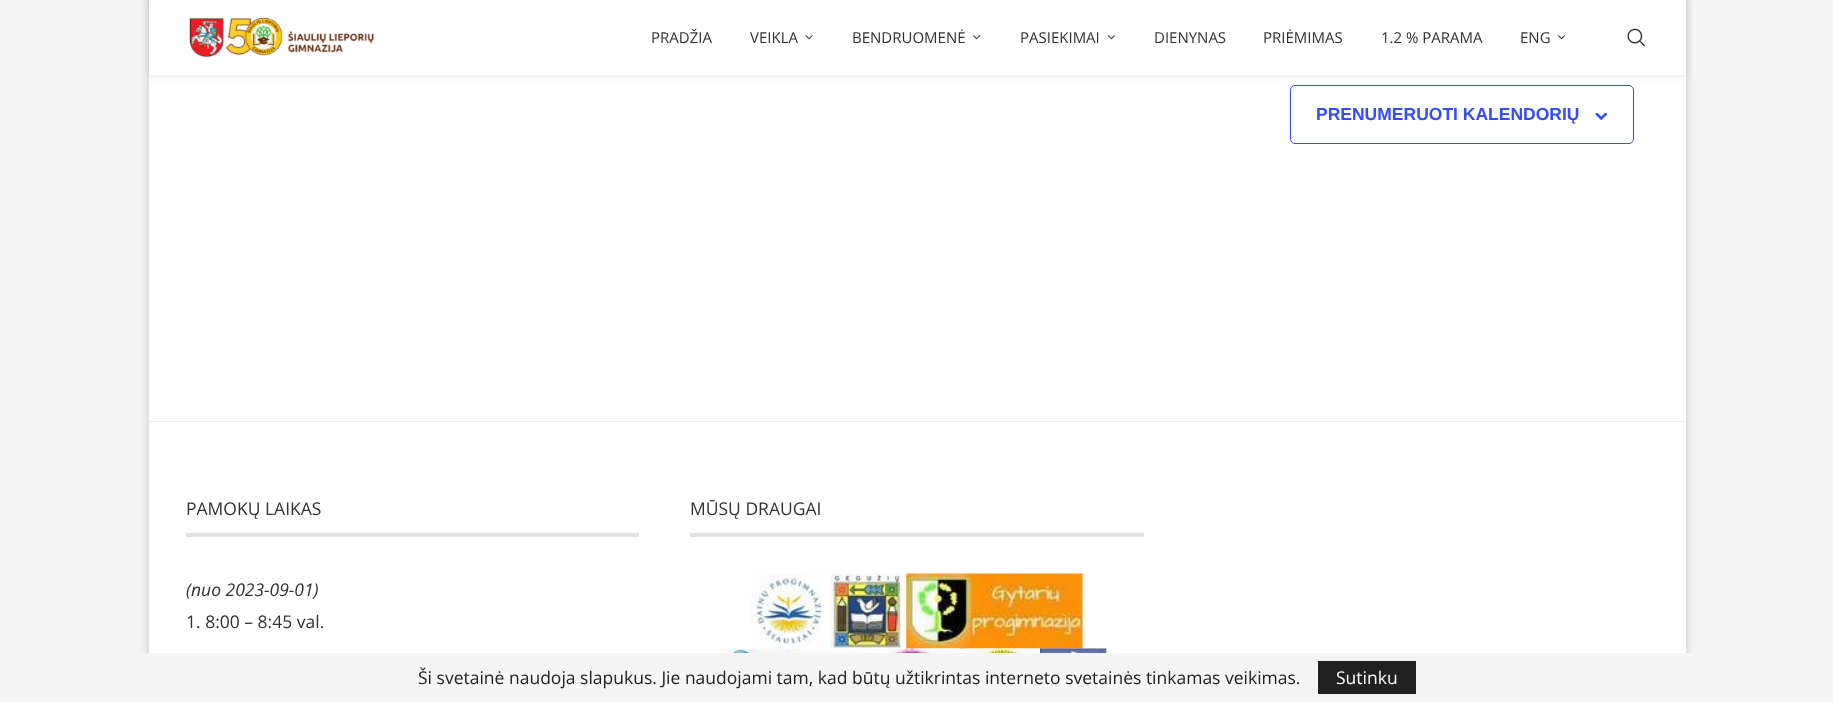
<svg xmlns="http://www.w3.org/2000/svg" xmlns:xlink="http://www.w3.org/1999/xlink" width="1833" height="702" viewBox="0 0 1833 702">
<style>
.cls-1{font:15px Open Sans;fill:#313131}
.cls-2{font:bold 17.5px Liberation Sans;fill:#334aff}
.cls-3{font:17.5px Open Sans;fill:#313131}
.cls-4{font:italic 17.5px Open Sans;fill:#313131}
.cls-5{font:17.5px Open Sans;fill:#212121}
.cls-6{font:17.5px Open Sans;fill:#ffffff}
</style>
<rect width="100%" height="100%" fill="#f5f5f5"/>
<rect fill="#000000" fill-opacity="0.2" filter="blur(5px)" x="149" y="-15" width="1537" height="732"/>
<rect fill="#ffffff" x="149" y="75" width="1537" height="578"/>
<rect fill="none" stroke="#334aff" x="1290.5" y="85.5" width="343" height="58" rx="4.5"/>
<rect fill="#bebebe" fill-opacity="0.46" filter="blur(3px)" x="149" y="1" width="1537" height="75"/>
<rect fill="#ffffff" x="149" y="0" width="1537" height="75"/>
<image xlink:href="image0.png" x="189" y="17" width="185" height="41"/>
<image xlink:href="image1.png" x="805" y="35" width="8" height="5"/>
<image xlink:href="image2.png" x="973" y="35" width="8" height="5"/>
<image xlink:href="image3.png" x="1107" y="35" width="8" height="5"/>
<image xlink:href="image4.png" x="1557" y="35" width="9" height="5"/>
<image xlink:href="image5.png" x="1627" y="28" width="18" height="19"/>
<image xlink:href="image6.png" x="1595" y="113" width="13" height="7"/>
<rect fill="#ececec" x="149" y="421" width="1537" height="1"/>
<rect fill="#e0e0e0" x="186" y="533" width="453" height="4"/>
<rect fill="#e0e0e0" x="690" y="533" width="454" height="4"/>
<image xlink:href="image7.png" x="751" y="573" width="75" height="75"/>
<image xlink:href="image8.png" x="830" y="573" width="72" height="76"/>
<image xlink:href="image9.png" x="906" y="573" width="177" height="76"/>
<image xlink:href="image10.png" x="727" y="648" width="137" height="5"/>
<image xlink:href="image11.png" x="868" y="648" width="92" height="5"/>
<image xlink:href="image12.png" x="965" y="648" width="75" height="5"/>
<image xlink:href="image13.png" x="1040" y="648" width="67" height="5"/>
<rect fill="#f5f5f5" x="141" y="653" width="1553" height="49"/>
<rect fill="#212121" x="1318" y="661" width="98" height="33"/>
<text class="cls-1" x="651" y="43">PRADŽIA</text>
<text class="cls-1" x="750" y="43">VEIKLA</text>
<text class="cls-1" x="852" y="43">BENDRUOMENĖ</text>
<text class="cls-1" x="1020" y="43">PASIEKIMAI</text>
<text class="cls-1" x="1154" y="43">DIENYNAS</text>
<text class="cls-1" x="1263" y="43">PRIĖMIMAS</text>
<text class="cls-1" x="1381" y="43">1.2 % PARAMA</text>
<text class="cls-1" x="1520" y="43">ENG</text>
<text class="cls-2" x="1316" y="120">PRENUMERUOTI KALENDORIŲ</text>
<text class="cls-3" x="186" y="515">PAMOKŲ LAIKAS</text>
<text class="cls-4" x="186" y="596">(nuo 2023-09-01)</text>
<text class="cls-3" x="186" y="628">1. 8:00 – 8:45 val.</text>
<text class="cls-3" x="690" y="515">MŪSŲ DRAUGAI</text>
<text class="cls-5" x="418" y="684">Ši svetainė naudoja slapukus. Jie naudojami tam, kad būtų užtikrintas interneto svetainės tinkamas veikimas.</text>
<text class="cls-6" x="1336" y="684">Sutinku</text>
</svg>
